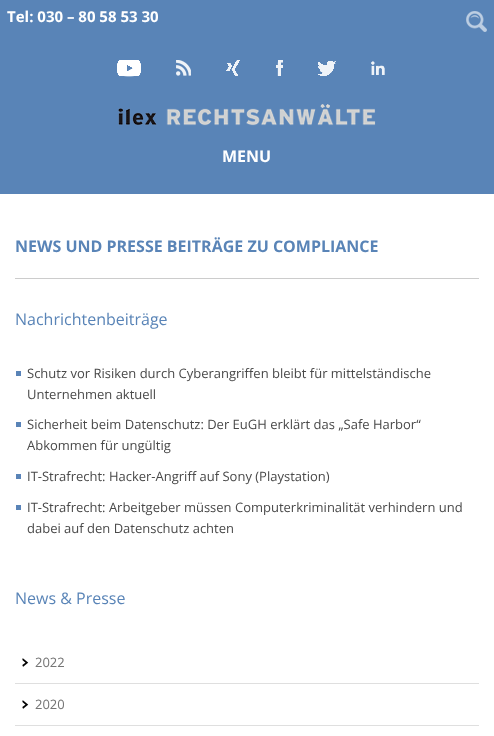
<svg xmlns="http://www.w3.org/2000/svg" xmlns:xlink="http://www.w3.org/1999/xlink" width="494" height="736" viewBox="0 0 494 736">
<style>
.cls-1{font:bold 15px Open Sans;fill:#ffffff}
.cls-2{font:bold 16px Open Sans;fill:#ffffff}
.cls-3{font:bold 16px Open Sans;fill:#5984b7}
.cls-4{font:16px Open Sans;fill:#5984b7}
.cls-5{font:13px Open Sans;fill:#494949}
.cls-6{font:13px Open Sans;fill:#757575}
</style>
<rect width="100%" height="100%" fill="#5984b7"/>
<image xlink:href="image0.png" x="466" y="11" width="21" height="21"/>
<image xlink:href="image1.png" x="117" y="60" width="24" height="17"/>
<image xlink:href="image2.png" x="176" y="60" width="15" height="16"/>
<image xlink:href="image3.png" x="226" y="60" width="14" height="16"/>
<image xlink:href="image4.png" x="276" y="60" width="7" height="16"/>
<image xlink:href="image5.png" x="318" y="61" width="18" height="15"/>
<image xlink:href="image6.png" x="371" y="61" width="14" height="14"/>
<image xlink:href="image7.png" x="118" y="104" width="258" height="22"/>
<rect fill="#ffffff" x="0" y="194" width="494" height="542"/>
<rect fill="#cccccc" x="15" y="278" width="464" height="1"/>
<image xlink:href="image8.png" x="16" y="371" width="5" height="5"/>
<image xlink:href="image8.png" x="16" y="422" width="5" height="5"/>
<image xlink:href="image8.png" x="16" y="474" width="5" height="5"/>
<image xlink:href="image8.png" x="16" y="505" width="5" height="5"/>
<image xlink:href="image9.png" x="22" y="658" width="7" height="9"/>
<rect fill="#dfdfdf" x="15" y="683" width="464" height="1"/>
<image xlink:href="image9.png" x="22" y="700" width="7" height="9"/>
<rect fill="#dfdfdf" x="15" y="725" width="464" height="1"/>
<text class="cls-1" x="7" y="22">Tel: 030 – 80 58 53 30</text>
<text class="cls-2" x="222" y="162">MENU</text>
<text class="cls-3" x="15" y="252">NEWS UND PRESSE BEITRÄGE ZU COMPLIANCE</text>
<text class="cls-4" x="15" y="325">Nachrichtenbeiträge</text>
<text class="cls-5"><tspan x="27" y="378">Schutz vor Risiken durch Cyberangriffen bleibt für mittelständische</tspan><tspan x="27" y="399">Unternehmen aktuell</tspan></text>
<text class="cls-5"><tspan x="27" y="429">Sicherheit beim Datenschutz: Der EuGH erklärt das „Safe Harbor“</tspan><tspan x="27" y="450">Abkommen für ungültig</tspan></text>
<text class="cls-5" x="27" y="481">IT-Strafrecht: Hacker-Angriff auf Sony (Playstation)</text>
<text class="cls-5"><tspan x="27" y="512">IT-Strafrecht: Arbeitgeber müssen Computerkriminalität verhindern und</tspan><tspan x="27" y="533">dabei auf den Datenschutz achten</tspan></text>
<text class="cls-4" x="15" y="604">News &amp; Presse</text>
<text class="cls-6" x="35" y="667">2022</text>
<text class="cls-6" x="35" y="709">2020</text>
</svg>
